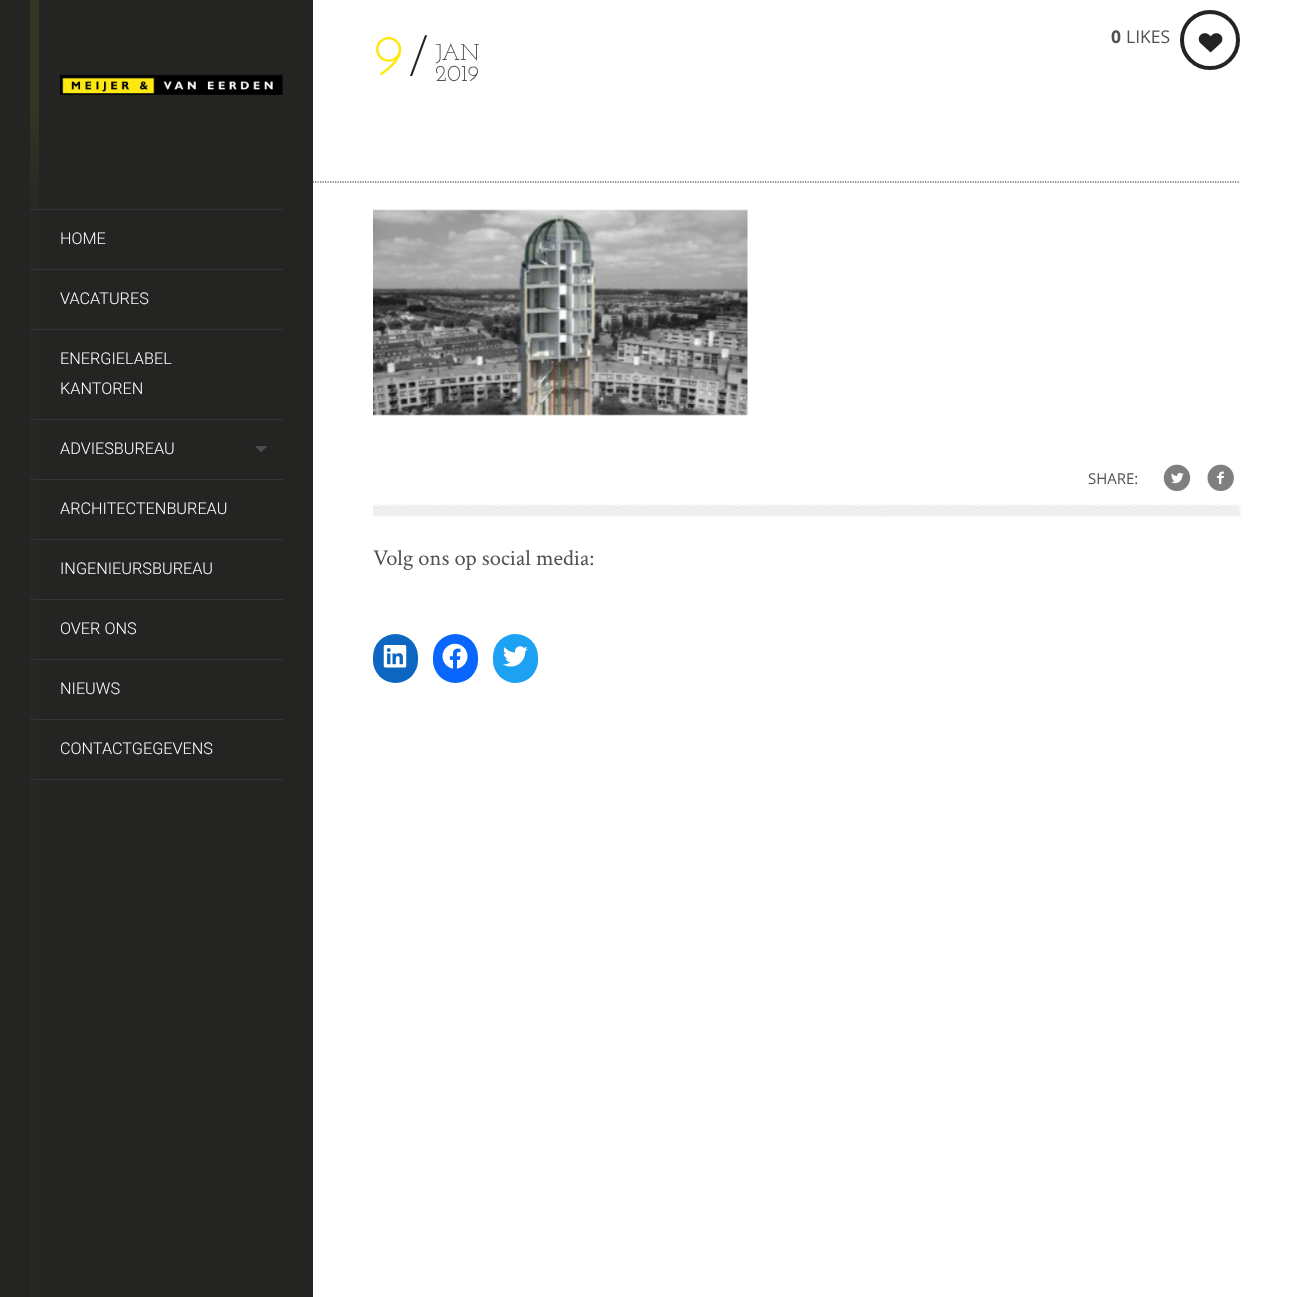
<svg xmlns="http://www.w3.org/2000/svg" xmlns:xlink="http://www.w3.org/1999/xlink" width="1299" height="1297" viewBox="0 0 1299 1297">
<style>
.cls-1{font:300 16.25px Roboto;fill:#ffffff}
.cls-2{font:60px Josefin Slab;fill:#ffe711}
.cls-3{font:54px Josefin Slab;fill:#242423}
.cls-4{font:23px Josefin Slab;fill:#515150}
.cls-5{font:bold 17.5px Open Sans;fill:#515150}
.cls-6{font:17.5px Open Sans;fill:#515150}
.cls-7{font:15px Open Sans;fill:#515150}
.cls-8{font:22.5px Crimson Text;fill:#515150}
</style>
<defs>
<linearGradient id="g1" gradientUnits="userSpaceOnUse" x1="31" y1="0" x2="31" y2="210"><stop offset="0.5" stop-color="#363422"/><stop offset="1" stop-color="#272726"/></linearGradient>
</defs>
<rect width="100%" height="100%" fill="#ffffff"/>
<path fill="none" stroke="#242423" stroke-width="1.2" stroke-dasharray="1.25 1.25" d="M312.5 182H1240"/>
<rect fill="#242423" x="0" y="0" width="313" height="1297"/>
<rect fill="#272726" x="30" y="210" width="9" height="1087"/>
<rect fill="url(#g1)" x="30" y="0" width="9" height="209"/>
<image xlink:href="image0.png" x="60" y="74" width="223" height="21"/>
<rect fill="#333638" x="30" y="209" width="253" height="1"/>
<rect fill="#333638" x="30" y="269" width="253" height="1"/>
<rect fill="#333638" x="30" y="329" width="253" height="1"/>
<rect fill="#333638" x="30" y="419" width="253" height="1"/>
<rect fill="#333638" x="30" y="479" width="253" height="1"/>
<path fill="#4d4d4d" d="M255 446H267.5L261 452.5Z"/>
<rect fill="#333638" x="30" y="539" width="253" height="1"/>
<rect fill="#333638" x="30" y="599" width="253" height="1"/>
<rect fill="#333638" x="30" y="659" width="253" height="1"/>
<rect fill="#333638" x="30" y="719" width="253" height="1"/>
<rect fill="#333638" x="30" y="779" width="253" height="1"/>
<circle fill="none" stroke="#242423" stroke-width="4" cx="1210" cy="40" r="28"/>
<image xlink:href="image1.png" x="1198" y="33" width="25" height="20"/>
<image xlink:href="image2.png" x="373" y="209" width="375" height="207"/>
<image xlink:href="image3.png" x="1163" y="464" width="28" height="28"/>
<image xlink:href="image4.png" x="1207" y="464" width="27" height="28"/>
<image xlink:href="image5.png" x="373" y="504" width="868" height="13"/>
<rect fill="#0d66c2" x="373" y="634" width="45" height="49" rx="22.5"/>
<image xlink:href="image6.png" x="383" y="645" width="24" height="23"/>
<rect fill="#0866ff" x="433" y="634" width="45" height="49" rx="22.5"/>
<image xlink:href="image7.png" x="442" y="643" width="26" height="26"/>
<rect fill="#1da1f2" x="493" y="634" width="45" height="49" rx="22.5"/>
<image xlink:href="image8.png" x="503" y="646" width="25" height="21"/>
<text class="cls-1" x="60" y="244">HOME</text>
<text class="cls-1" x="60" y="304">VACATURES</text>
<text class="cls-1"><tspan x="60" y="364">ENERGIELABEL</tspan><tspan x="60" y="394">KANTOREN</tspan></text>
<text class="cls-1" x="60" y="454">ADVIESBUREAU</text>
<text class="cls-1" x="60" y="514">ARCHITECTENBUREAU</text>
<text class="cls-1" x="60" y="574">INGENIEURSBUREAU</text>
<text class="cls-1" x="60" y="634">OVER ONS</text>
<text class="cls-1" x="60" y="694">NIEUWS</text>
<text class="cls-1" x="60" y="754">CONTACTGEGEVENS</text>
<text class="cls-2" x="373" y="75">9</text>
<text class="cls-3" x="409" y="75">/</text>
<text class="cls-4"><tspan x="435" y="60">JAN</tspan><tspan x="435" y="81">2019</tspan></text>
<text class="cls-5" x="1111" y="43">0</text>
<text class="cls-6" x="1126" y="43">LIKES</text>
<text class="cls-7" x="1088" y="484">SHARE:</text>
<text class="cls-8" x="373" y="565">Volg ons op social media:</text>
</svg>
